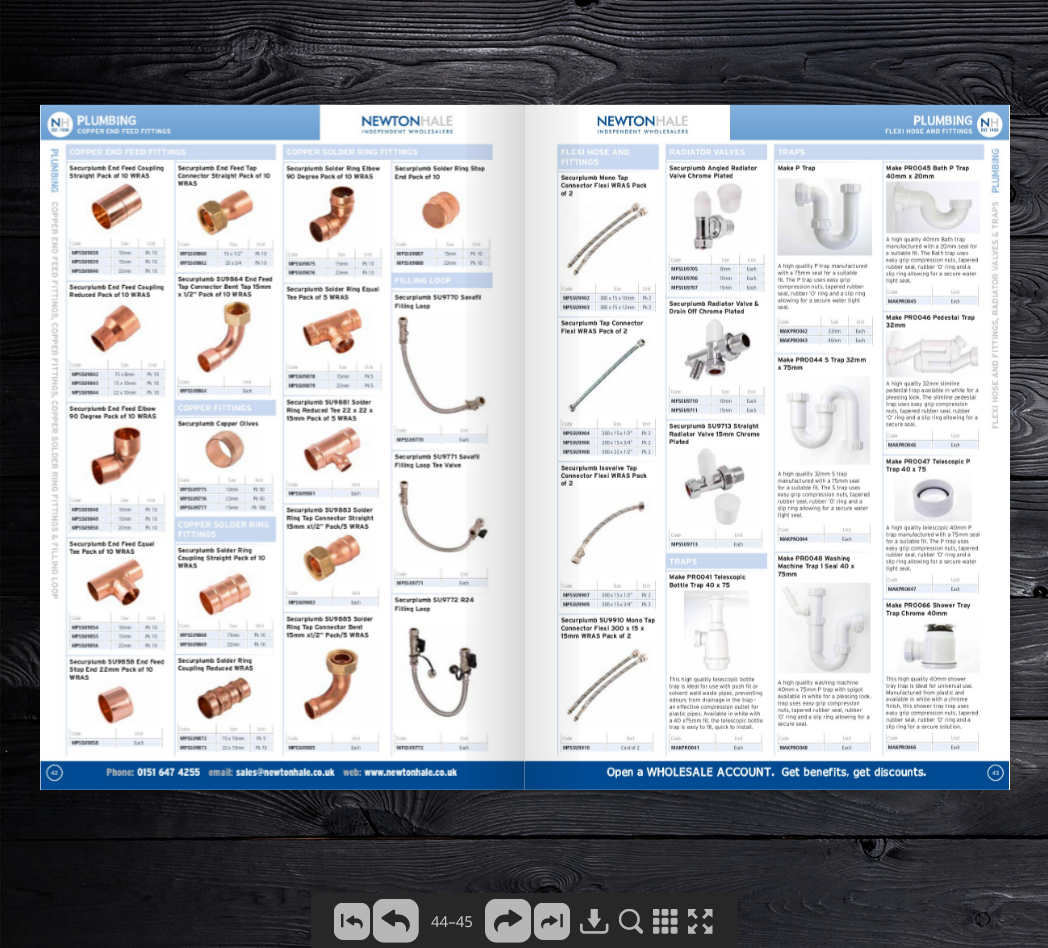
<svg xmlns="http://www.w3.org/2000/svg" xmlns:xlink="http://www.w3.org/1999/xlink" width="1048" height="948" viewBox="0 0 1048 948">
<style>
.cls-1{font:15px Open Sans;fill:#cccccc}
</style>
<defs>
<linearGradient id="g1" gradientUnits="userSpaceOnUse" x1="456" y1="448" x2="525" y2="448"><stop offset="0" stop-color="#000000" stop-opacity="0"/><stop offset="1" stop-color="#000000" stop-opacity="0.15"/></linearGradient>
<linearGradient id="g2" gradientUnits="userSpaceOnUse" x1="525" y1="448" x2="594" y2="448"><stop offset="0" stop-color="#000000" stop-opacity="0.1"/><stop offset="1" stop-color="#000000" stop-opacity="0"/></linearGradient>
</defs>
<rect width="100%" height="100%" fill="#ffffff"/>
<image xlink:href="image0.png" x="0" y="0" width="1048" height="948"/>
<rect fill="#000000" fill-opacity="0.2" filter="blur(6px)" x="40" y="109" width="970" height="685"/>
<rect fill="#ffffff" x="40" y="105" width="970" height="685"/>
<image xlink:href="image1.png" x="40" y="104" width="485" height="686"/>
<rect fill="url(#g1)" x="466" y="105" width="59" height="685"/>
<image xlink:href="image2.png" x="525" y="104" width="484" height="686"/>
<rect fill="url(#g2)" x="525" y="105" width="54" height="685"/>
<path fill="#272727" d="M317 893H732C735.5 893 738 895.5 738 899V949H311V899C311 895.5 313.5 893 317 893Z"/>
<image xlink:href="image3.png" x="334" y="903" width="36" height="37"/>
<image xlink:href="image4.png" x="373" y="899" width="46" height="44"/>
<image xlink:href="image5.png" x="485" y="899" width="46" height="44"/>
<image xlink:href="image6.png" x="534" y="903" width="36" height="37"/>
<image xlink:href="image7.png" x="580" y="909" width="29" height="25"/>
<image xlink:href="image8.png" x="619" y="909" width="24" height="25"/>
<image xlink:href="image9.png" x="653" y="909" width="25" height="25"/>
<image xlink:href="image10.png" x="688" y="909" width="25" height="25"/>
<text class="cls-1" x="431" y="927">44–45</text>
</svg>
